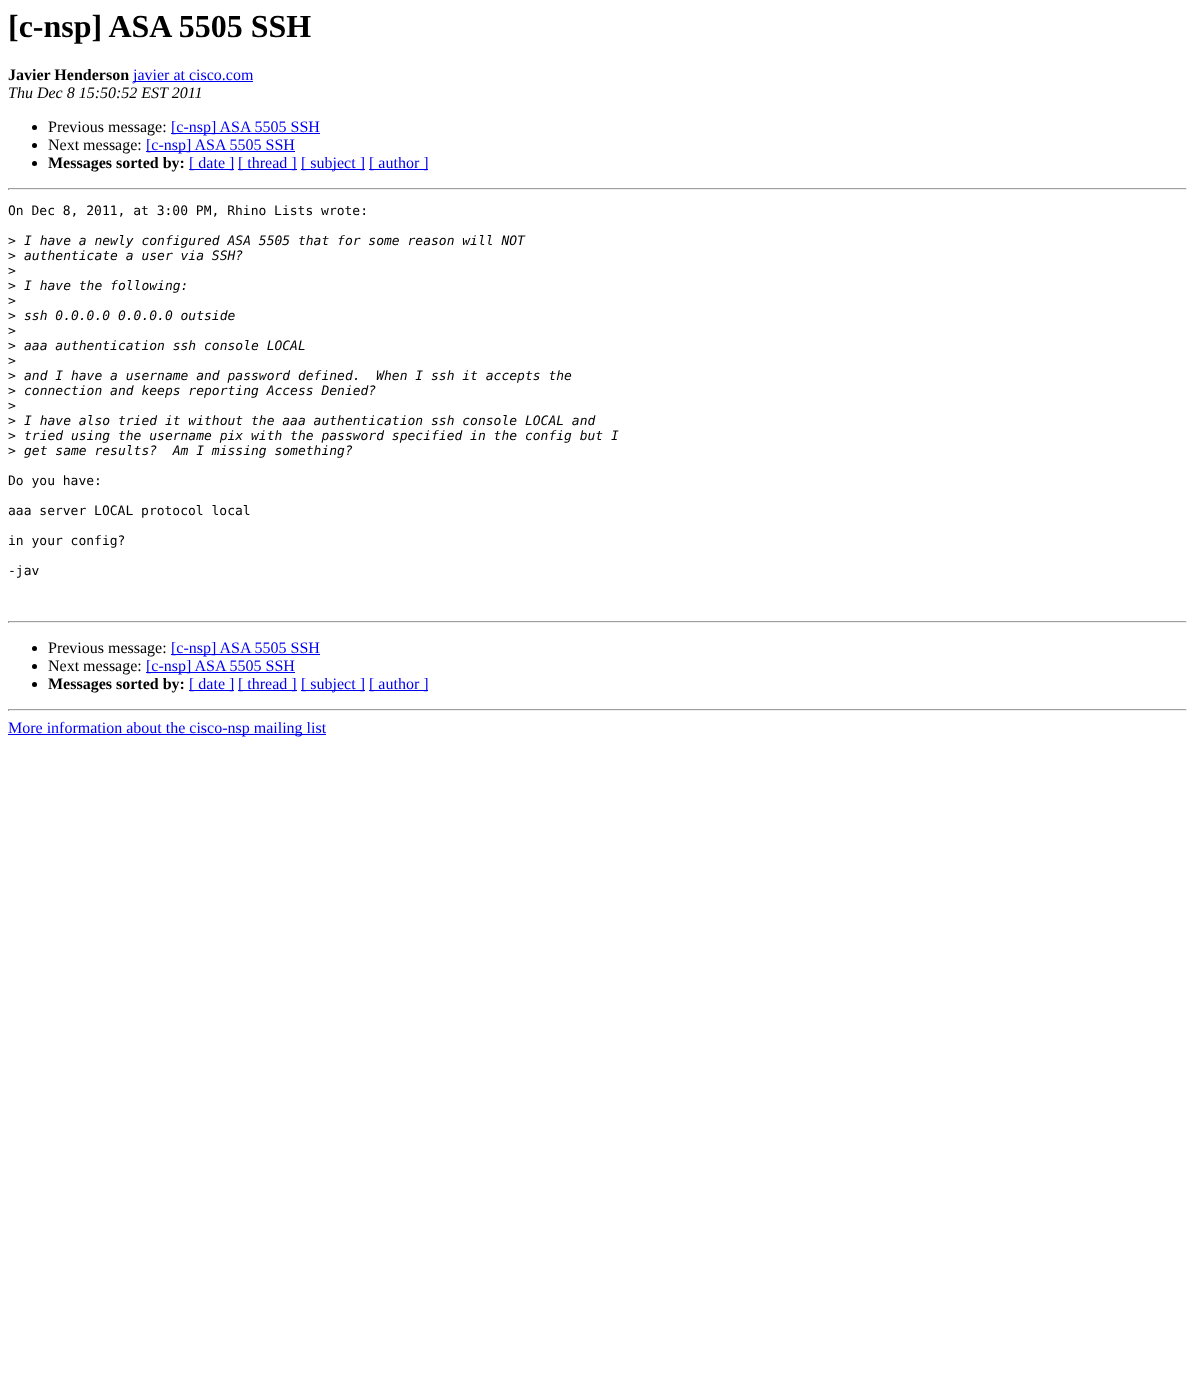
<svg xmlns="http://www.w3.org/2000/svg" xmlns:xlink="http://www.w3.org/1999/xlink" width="1195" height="1398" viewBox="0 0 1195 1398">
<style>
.cls-1{font:bold 32px Liberation Serif;fill:#000000}
.cls-2{font:bold 16px Liberation Serif;fill:#000000}
.cls-3{font:16px Liberation Serif;fill:#0000ee}
.cls-4{font:italic 16px Liberation Serif;fill:#000000}
.cls-5{font:16px Liberation Serif;fill:#000000}
.cls-6{font:13px DejaVu Sans Mono;fill:#000000}
.cls-7{font:italic 13px DejaVu Sans Mono;fill:#000000}
</style>
<rect width="100%" height="100%" fill="#ffffff"/>
<rect fill="#0000ee" x="133" y="81" width="120" height="1"/>
<circle fill="#000000" cx="34.5" cy="127.5" r="2.5"/>
<rect fill="#0000ee" x="171" y="133" width="149" height="1"/>
<circle fill="#000000" cx="34.5" cy="145.5" r="2.5"/>
<rect fill="#0000ee" x="146" y="151" width="149" height="1"/>
<circle fill="#000000" cx="34.5" cy="163.5" r="2.5"/>
<rect fill="#0000ee" x="189" y="169" width="45" height="1"/>
<rect fill="#0000ee" x="238" y="169" width="59" height="1"/>
<rect fill="#0000ee" x="301" y="169" width="64" height="1"/>
<rect fill="#0000ee" x="369" y="169" width="59" height="1"/>
<rect fill="#9f9f9f" x="8" y="188" width="1179" height="1"/>
<rect fill="#eeeeee" x="1186" y="188" width="1" height="2"/>
<rect fill="#eeeeee" x="8" y="189" width="1179" height="1"/>
<rect fill="#9f9f9f" x="8" y="188" width="1" height="2"/>
<rect fill="#9f9f9f" x="8" y="621" width="1179" height="1"/>
<rect fill="#eeeeee" x="1186" y="621" width="1" height="2"/>
<rect fill="#eeeeee" x="8" y="622" width="1179" height="1"/>
<rect fill="#9f9f9f" x="8" y="621" width="1" height="2"/>
<circle fill="#000000" cx="34.5" cy="648.5" r="2.5"/>
<rect fill="#0000ee" x="171" y="654" width="149" height="1"/>
<circle fill="#000000" cx="34.5" cy="666.5" r="2.5"/>
<rect fill="#0000ee" x="146" y="672" width="149" height="1"/>
<circle fill="#000000" cx="34.5" cy="684.5" r="2.5"/>
<rect fill="#0000ee" x="189" y="690" width="45" height="1"/>
<rect fill="#0000ee" x="238" y="690" width="59" height="1"/>
<rect fill="#0000ee" x="301" y="690" width="64" height="1"/>
<rect fill="#0000ee" x="369" y="690" width="59" height="1"/>
<rect fill="#9f9f9f" x="8" y="709" width="1179" height="1"/>
<rect fill="#eeeeee" x="1186" y="709" width="1" height="2"/>
<rect fill="#eeeeee" x="8" y="710" width="1179" height="1"/>
<rect fill="#9f9f9f" x="8" y="709" width="1" height="2"/>
<rect fill="#0000ee" x="8" y="734" width="318" height="1"/>
<text class="cls-1" x="8" y="37">[c-nsp] ASA 5505 SSH</text>
<text class="cls-2" x="8" y="80">Javier Henderson</text>
<text class="cls-3" x="133" y="80">javier at cisco.com</text>
<text class="cls-4" x="8" y="98">Thu Dec 8 15:50:52 EST 2011</text>
<text class="cls-5" x="48" y="132">Previous message:</text>
<text class="cls-3" x="171" y="132">[c-nsp] ASA 5505 SSH</text>
<text class="cls-5" x="48" y="150">Next message:</text>
<text class="cls-3" x="146" y="150">[c-nsp] ASA 5505 SSH</text>
<text class="cls-2" x="48" y="168">Messages sorted by:</text>
<text class="cls-3" x="189" y="168">[ date ]</text>
<text class="cls-3" x="238" y="168">[ thread ]</text>
<text class="cls-3" x="301" y="168">[ subject ]</text>
<text class="cls-3" x="369" y="168">[ author ]</text>
<text class="cls-6" x="8" y="215">On Dec 8, 2011, at 3:00 PM, Rhino Lists wrote:</text>
<text class="cls-6" x="8" y="245">&gt;</text>
<text class="cls-7" x="24" y="245">I have a newly configured ASA 5505 that for some reason will NOT</text>
<text class="cls-6" x="8" y="260">&gt;</text>
<text class="cls-7" x="24" y="260">authenticate a user via SSH?</text>
<text class="cls-6"><tspan x="8" y="275">&gt;</tspan><tspan x="8" y="290">&gt;</tspan></text>
<text class="cls-7" x="24" y="290">I have the following:</text>
<text class="cls-6"><tspan x="8" y="305">&gt;</tspan><tspan x="8" y="320">&gt;</tspan></text>
<text class="cls-7" x="24" y="320">ssh 0.0.0.0 0.0.0.0 outside</text>
<text class="cls-6"><tspan x="8" y="335">&gt;</tspan><tspan x="8" y="350">&gt;</tspan></text>
<text class="cls-7" x="24" y="350">aaa authentication ssh console LOCAL</text>
<text class="cls-6"><tspan x="8" y="365">&gt;</tspan><tspan x="8" y="380">&gt;</tspan></text>
<text class="cls-7" xml:space="preserve" x="24" y="380">and I have a username and password defined.  When I ssh it accepts the</text>
<text class="cls-6" x="8" y="395">&gt;</text>
<text class="cls-7" x="24" y="395">connection and keeps reporting Access Denied?</text>
<text class="cls-6"><tspan x="8" y="410">&gt;</tspan><tspan x="8" y="425">&gt;</tspan></text>
<text class="cls-7" x="24" y="425">I have also tried it without the aaa authentication ssh console LOCAL and</text>
<text class="cls-6" x="8" y="440">&gt;</text>
<text class="cls-7" x="24" y="440">tried using the username pix with the password specified in the config but I</text>
<text class="cls-6" x="8" y="455">&gt;</text>
<text class="cls-7" xml:space="preserve" x="24" y="455">get same results?  Am I missing something?</text>
<text class="cls-6" x="8" y="485">Do you have:</text>
<text class="cls-6" x="8" y="515">aaa server LOCAL protocol local</text>
<text class="cls-6" x="8" y="545">in your config?</text>
<text class="cls-6" x="8" y="575">-jav</text>
<text class="cls-5" x="48" y="653">Previous message:</text>
<text class="cls-3" x="171" y="653">[c-nsp] ASA 5505 SSH</text>
<text class="cls-5" x="48" y="671">Next message:</text>
<text class="cls-3" x="146" y="671">[c-nsp] ASA 5505 SSH</text>
<text class="cls-2" x="48" y="689">Messages sorted by:</text>
<text class="cls-3" x="189" y="689">[ date ]</text>
<text class="cls-3" x="238" y="689">[ thread ]</text>
<text class="cls-3" x="301" y="689">[ subject ]</text>
<text class="cls-3" x="369" y="689">[ author ]</text>
<text class="cls-3" x="8" y="733">More information about the cisco-nsp mailing list</text>
</svg>
